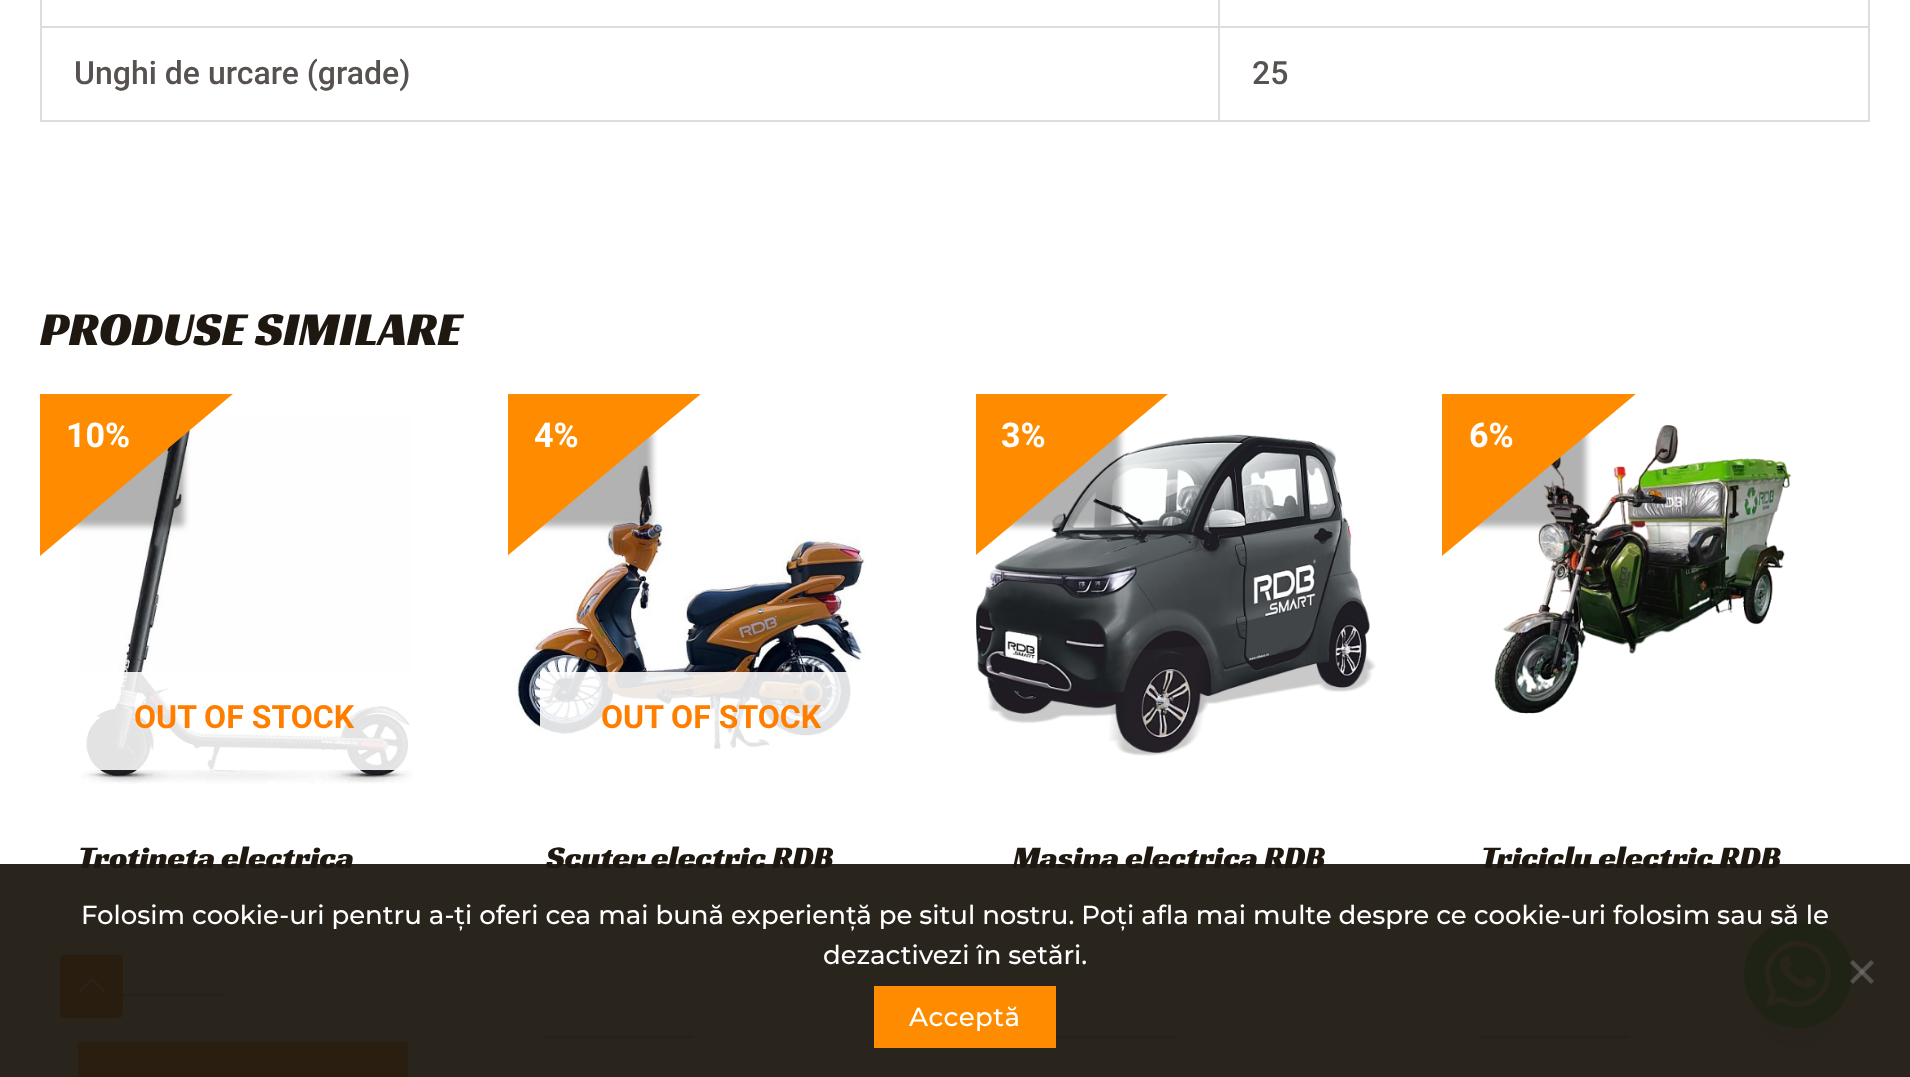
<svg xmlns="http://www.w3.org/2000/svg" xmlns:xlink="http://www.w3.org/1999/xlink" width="1910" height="1077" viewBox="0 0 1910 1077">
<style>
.cls-1{font:500 32px Roboto;fill:#575250}
.cls-2{font:48px Racing Sans One;fill:#1e1810}
.cls-3{font:bold 34px Roboto;fill:#ffffff}
.cls-4{font:bold 32px Roboto;fill:#ff7e00}
.cls-5{font:32px Racing Sans One;fill:#1e1810}
.cls-6{font:100 26px Montserrat;fill:#ffffff}
.cls-7{font:100 26px Montserrat;letter-spacing:0.5px;fill:#ffffff}
</style>
<defs>
<clipPath id="clip1"><rect x="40" y="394" width="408" height="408"/></clipPath>
<clipPath id="clip2"><rect x="40" y="394" width="408" height="408"/></clipPath>
<clipPath id="clip3"><rect x="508" y="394" width="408" height="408"/></clipPath>
<clipPath id="clip4"><rect x="508" y="394" width="408" height="408"/></clipPath>
<clipPath id="clip5"><rect x="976" y="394" width="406" height="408"/></clipPath>
<clipPath id="clip6"><rect x="976" y="394" width="406" height="408"/></clipPath>
<clipPath id="clip7"><rect x="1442" y="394" width="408" height="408"/></clipPath>
<clipPath id="clip8"><rect x="1442" y="394" width="408" height="408"/></clipPath>
</defs>
<rect width="100%" height="100%" fill="#ffffff"/>
<rect fill="#dddddd" x="40" y="0" width="2" height="122"/>
<rect fill="#dddddd" x="1218" y="0" width="2" height="122"/>
<rect fill="#dddddd" x="42" y="26" width="1178" height="2"/>
<rect fill="#dddddd" x="1868" y="0" width="2" height="122"/>
<rect fill="#dddddd" x="1220" y="26" width="650" height="2"/>
<rect fill="#dddddd" x="42" y="120" width="1828" height="2"/>
<image xlink:href="image0.png" x="81" y="414" width="331" height="370"/>
<g clip-path="url(#clip1)">
<rect fill="#000000" fill-opacity="0.3" filter="blur(3px)" x="-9" y="218" width="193" height="308"/>
</g>
<g clip-path="url(#clip2)">
<path fill="#ff8c00" d="M-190 357L47 158L240 388L3 587Z"/>
</g>
<rect fill="#ffffff" fill-opacity="0.88" x="81" y="672" width="331" height="98"/>
<rect fill="#aba9a8" x="123" y="994" width="103" height="2"/>
<rect fill="#ff8c00" x="78" y="1042" width="330" height="35"/>
<image xlink:href="image1.png" x="514" y="460" width="352" height="293"/>
<g clip-path="url(#clip3)">
<rect fill="#000000" fill-opacity="0.3" filter="blur(3px)" x="334" y="218" width="318" height="308"/>
</g>
<g clip-path="url(#clip4)">
<path fill="#ff8c00" d="M277 357L515 158L708 388L470 587Z"/>
</g>
<rect fill="#ffffff" fill-opacity="0.88" x="540" y="672" width="321" height="81"/>
<rect fill="#aba9a8" x="546" y="1036" width="146" height="2"/>
<image xlink:href="image2.png" x="976" y="434" width="400" height="322"/>
<g clip-path="url(#clip5)">
<rect fill="#000000" fill-opacity="0.3" filter="blur(3px)" x="802" y="218" width="318" height="308"/>
</g>
<g clip-path="url(#clip6)">
<path fill="#ff8c00" d="M745 357L982 158L1175 388L938 587Z"/>
</g>
<rect fill="#aba9a8" x="1056" y="1036" width="120" height="2"/>
<image xlink:href="image3.png" x="1494" y="425" width="298" height="289"/>
<g clip-path="url(#clip7)">
<rect fill="#000000" fill-opacity="0.3" filter="blur(3px)" x="1268" y="218" width="318" height="308"/>
</g>
<g clip-path="url(#clip8)">
<path fill="#ff8c00" d="M1212 357L1450 158L1643 388L1405 587Z"/>
</g>
<rect fill="#aba9a8" x="1480" y="1036" width="148" height="2"/>
<rect fill="#49687e" fill-opacity="0.16" filter="blur(24px)" x="1744" y="952" width="108" height="108" rx="54"/>
<image xlink:href="image4.png" x="1744" y="920" width="108" height="108"/>
<path fill="#ff7e00" d="M119 1018H64C62 1018 60 1016 60 1014V959C60 957 62 955 64 955H119C121 955 123 957 123 959V1014C123 1016 121 1018 119 1018Z"/>
<image xlink:href="image5.png" x="78" y="978" width="28" height="15"/>
<text class="cls-1" x="74" y="84">Unghi de urcare (grade)</text>
<text class="cls-1" x="1252" y="84">25</text>
<text class="cls-2" x="40" y="345">PRODUSE SIMILARE</text>
<text class="cls-3" x="66" y="447">10%</text>
<text class="cls-4" x="134" y="728">OUT OF STOCK</text>
<text class="cls-5" x="78" y="868">Trotineta electrica</text>
<text class="cls-3" x="534" y="447">4%</text>
<text class="cls-4" x="601" y="728">OUT OF STOCK</text>
<text class="cls-5" x="546" y="868">Scuter electric RDB</text>
<text class="cls-3" x="1001" y="447">3%</text>
<text class="cls-5" x="1013" y="868">Masina electrica RDB</text>
<text class="cls-3" x="1469" y="447">6%</text>
<text class="cls-5" x="1481" y="868">Triciclu electric RDB</text>
<rect fill="#1e1810" fill-opacity="0.95" x="0" y="864" width="1910" height="213"/>
<text class="cls-6" x="81" y="924">Folosim cookie-uri pentru a-ți oferi cea mai bună experiență pe situl nostru. Poți afla mai multe despre ce cookie-uri folosim sau să le</text>
<text class="cls-6" x="823" y="964">dezactivezi în setări.</text>
<path fill="#808080" fill-opacity="0.5" d="M1871 960L1874 963L1853 984L1850 981Z"/>
<path fill="#808080" fill-opacity="0.5" d="M1850 963L1853 960L1874 981L1871 984Z"/>
<rect fill="#ff8c00" x="874" y="986" width="182" height="62"/>
<text class="cls-7" x="909" y="1026">Acceptă</text>
</svg>
